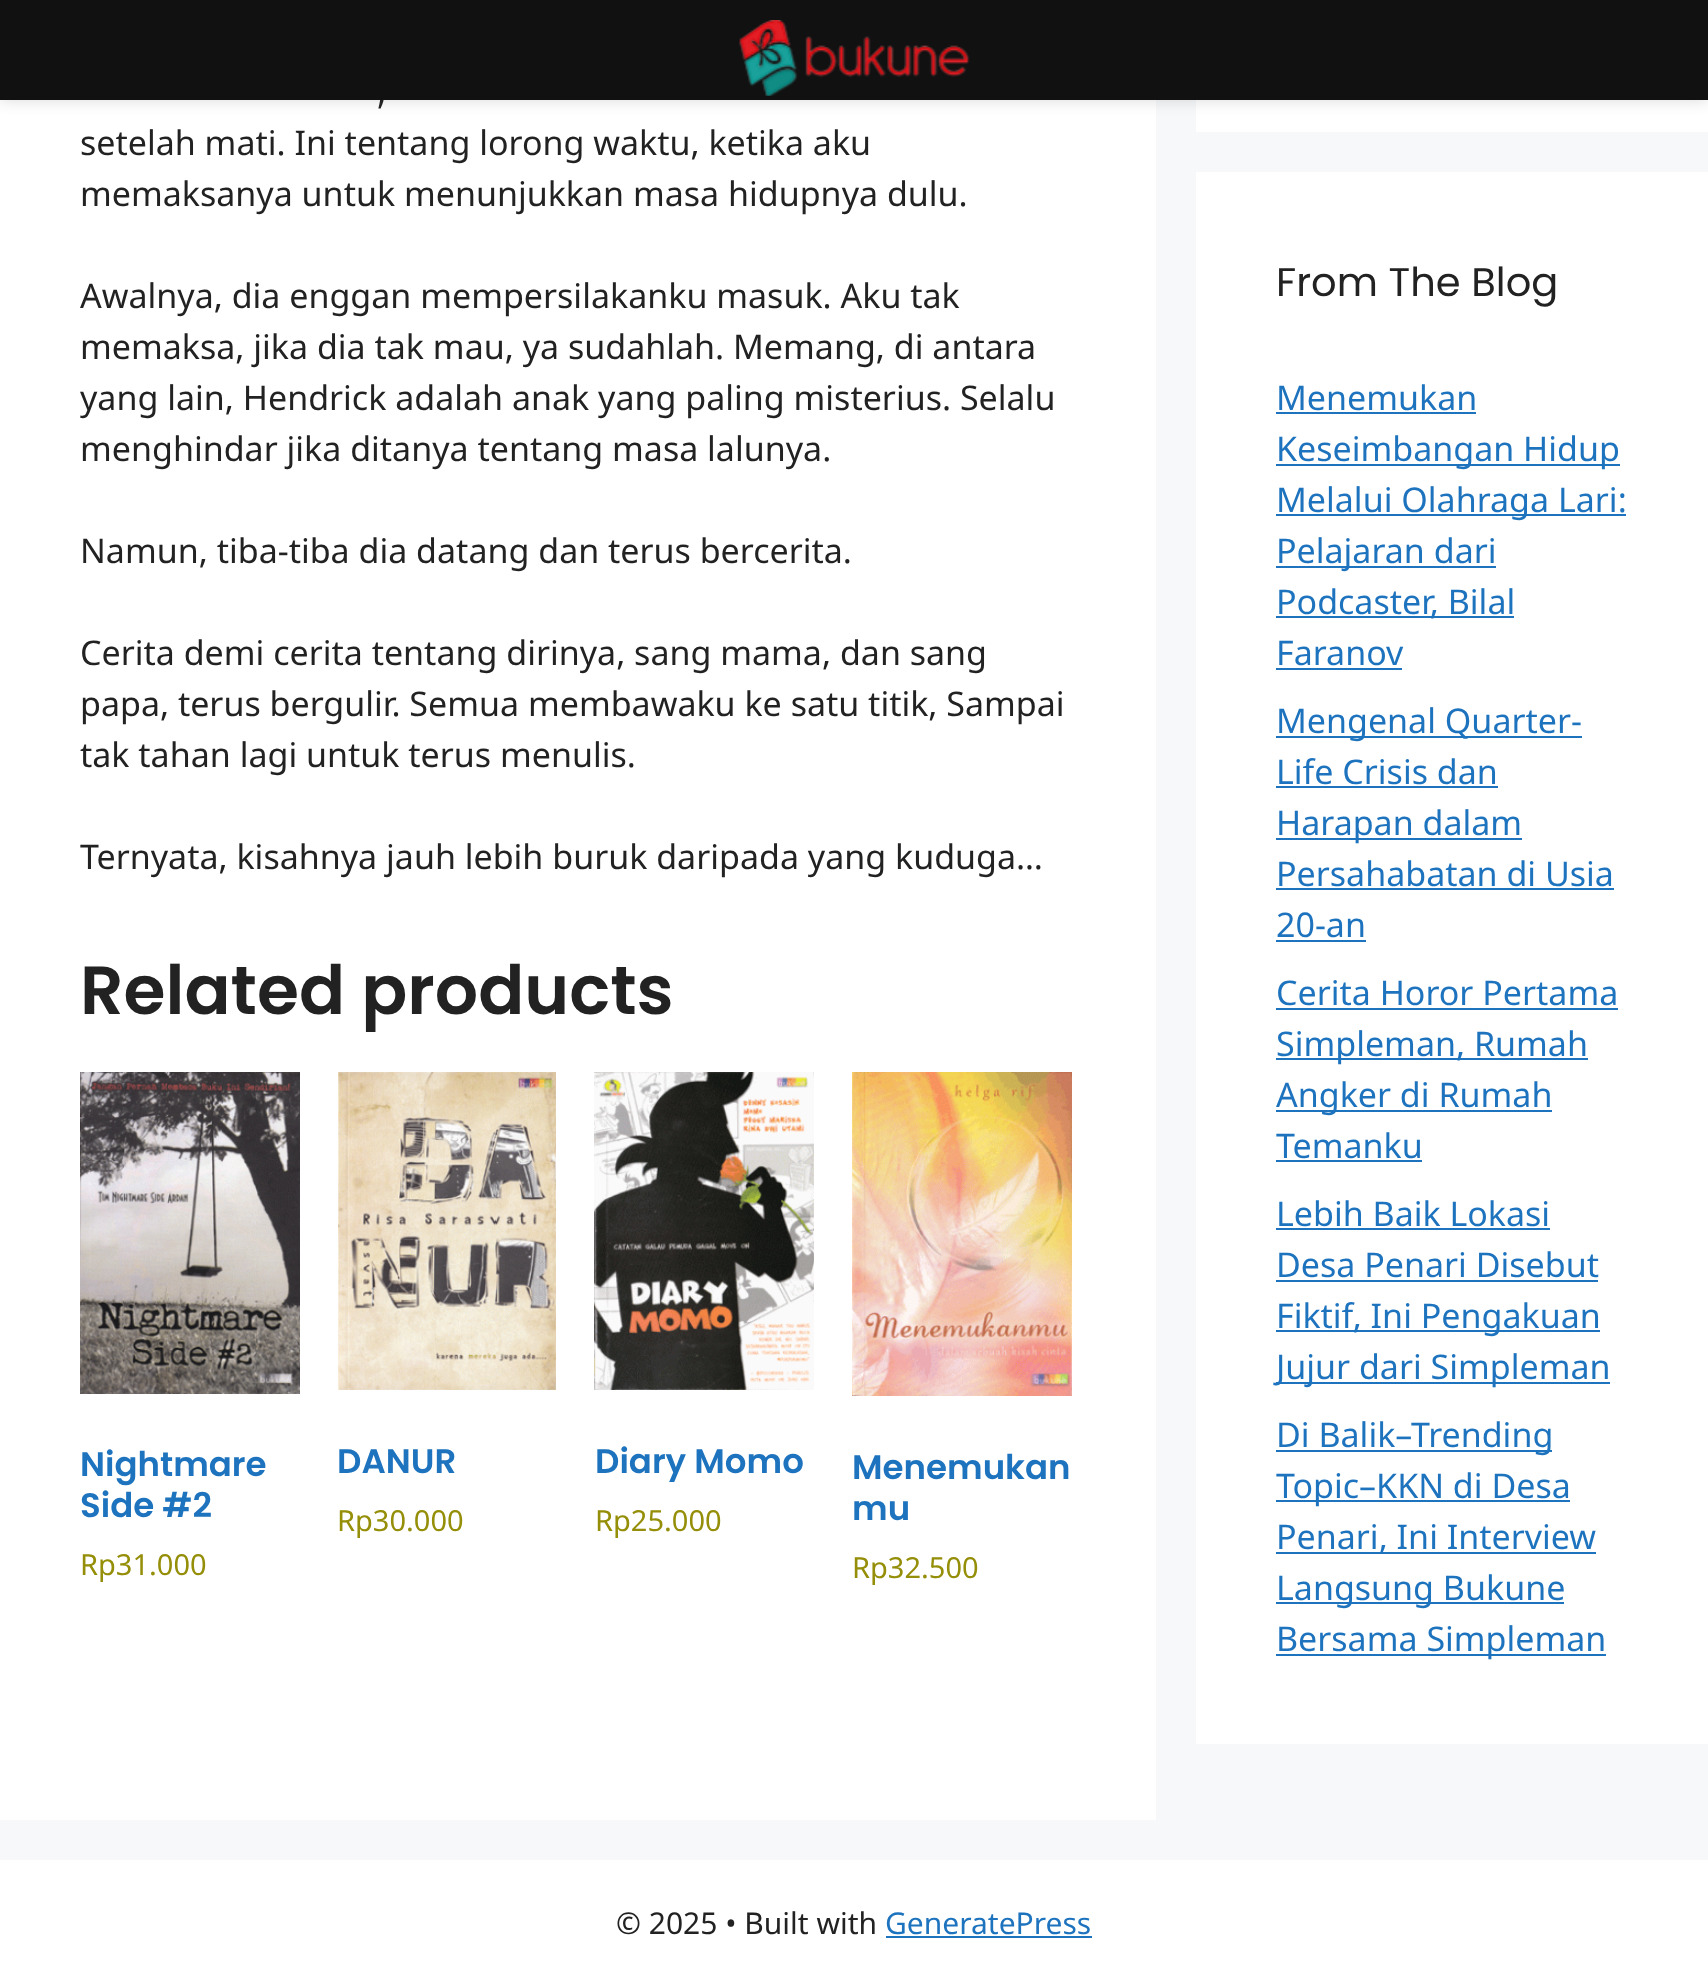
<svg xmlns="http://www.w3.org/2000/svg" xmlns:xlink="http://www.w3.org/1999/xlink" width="1708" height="1984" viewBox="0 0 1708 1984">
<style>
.cls-1{font:34px Noto Sans;fill:#222222}
.cls-2{font:600 68px Poppins;fill:#222222}
.cls-3{font:600 34px Poppins;fill:#1e73be}
.cls-4{font:29px Noto Sans;fill:#958e09}
.cls-5{font:40px Poppins;fill:#222222}
.cls-6{font:34px Noto Sans;fill:#1e73be}
.cls-7{font:30px Noto Sans;fill:#222222}
.cls-8{font:30px Noto Sans;fill:#1e73be}
</style>
<rect width="100%" height="100%" fill="#f7f8f9"/>
<rect fill="#ffffff" x="0" y="100" width="1156" height="1720"/>
<rect fill="#ffffff" x="1196" y="100" width="512" height="32"/>
<rect fill="#000000" fill-opacity="0.15" filter="blur(8px)" x="0" y="0" width="1708" height="100"/>
<rect fill="#111111" x="0" y="0" width="1708" height="100"/>
<image xlink:href="image0.png" x="739" y="20" width="231" height="76"/>
<image xlink:href="image1.png" x="80" y="1072" width="220" height="322"/>
<image xlink:href="image2.png" x="338" y="1072" width="218" height="318"/>
<image xlink:href="image3.png" x="594" y="1072" width="220" height="318"/>
<image xlink:href="image4.png" x="852" y="1072" width="220" height="324"/>
<rect fill="#ffffff" x="1196" y="172" width="512" height="1572"/>
<rect fill="#1e73be" x="1276" y="412" width="200" height="2"/>
<rect fill="#1e73be" x="1276" y="464" width="344" height="2"/>
<rect fill="#1e73be" x="1276" y="514" width="350" height="2"/>
<rect fill="#1e73be" x="1276" y="566" width="220" height="2"/>
<rect fill="#1e73be" x="1276" y="616" width="238" height="2"/>
<rect fill="#1e73be" x="1276" y="668" width="126" height="2"/>
<rect fill="#1e73be" x="1276" y="736" width="306" height="2"/>
<rect fill="#1e73be" x="1276" y="786" width="222" height="2"/>
<rect fill="#1e73be" x="1276" y="838" width="246" height="2"/>
<rect fill="#1e73be" x="1276" y="888" width="338" height="2"/>
<rect fill="#1e73be" x="1276" y="940" width="90" height="2"/>
<rect fill="#1e73be" x="1276" y="1008" width="342" height="2"/>
<rect fill="#1e73be" x="1276" y="1058" width="312" height="2"/>
<rect fill="#1e73be" x="1276" y="1110" width="276" height="2"/>
<rect fill="#1e73be" x="1276" y="1160" width="146" height="2"/>
<rect fill="#1e73be" x="1276" y="1228" width="274" height="2"/>
<rect fill="#1e73be" x="1276" y="1280" width="322" height="2"/>
<rect fill="#1e73be" x="1276" y="1330" width="324" height="2"/>
<rect fill="#1e73be" x="1276" y="1382" width="334" height="2"/>
<rect fill="#1e73be" x="1276" y="1450" width="276" height="2"/>
<rect fill="#1e73be" x="1276" y="1500" width="294" height="2"/>
<rect fill="#1e73be" x="1276" y="1552" width="320" height="2"/>
<rect fill="#1e73be" x="1276" y="1602" width="288" height="2"/>
<rect fill="#1e73be" x="1276" y="1654" width="330" height="2"/>
<rect fill="#ffffff" x="0" y="1860" width="1708" height="124"/>
<rect fill="#1e73be" x="886" y="1936" width="206" height="2"/>
<text class="cls-1" x="377" y="104">,</text>
<text class="cls-1"><tspan x="80" y="155">setelah mati. Ini tentang lorong waktu, ketika aku</tspan><tspan x="80" y="206">memaksanya untuk menunjukkan masa hidupnya dulu.</tspan></text>
<text class="cls-1"><tspan x="80" y="308">Awalnya, dia enggan mempersilakanku masuk. Aku tak</tspan><tspan x="80" y="359">memaksa, jika dia tak mau, ya sudahlah. Memang, di antara</tspan><tspan x="80" y="410">yang lain, Hendrick adalah anak yang paling misterius. Selalu</tspan><tspan x="80" y="461">menghindar jika ditanya tentang masa lalunya.</tspan></text>
<text class="cls-1" x="80" y="563">Namun, tiba-tiba dia datang dan terus bercerita.</text>
<text class="cls-1"><tspan x="80" y="665">Cerita demi cerita tentang dirinya, sang mama, dan sang</tspan><tspan x="80" y="716">papa, terus bergulir. Semua membawaku ke satu titik, Sampai</tspan><tspan x="80" y="767">tak tahan lagi untuk terus menulis.</tspan></text>
<text class="cls-1" x="80" y="869">Ternyata, kisahnya jauh lebih buruk daripada yang kuduga…</text>
<text class="cls-2" x="80" y="1014">Related products</text>
<text class="cls-3"><tspan x="80" y="1476">Nightmare</tspan><tspan x="80" y="1517">Side #2</tspan></text>
<text class="cls-4" x="80" y="1575">Rp31.000</text>
<text class="cls-3" x="337" y="1473">DANUR</text>
<text class="cls-4" x="337" y="1531">Rp30.000</text>
<text class="cls-3" x="595" y="1473">Diary Momo</text>
<text class="cls-4" x="595" y="1531">Rp25.000</text>
<text class="cls-3"><tspan x="852" y="1479">Menemukan</tspan><tspan x="852" y="1520">mu</tspan></text>
<text class="cls-4" x="852" y="1578">Rp32.500</text>
<text class="cls-5" x="1276" y="296">From The Blog</text>
<text class="cls-6"><tspan x="1276" y="410">Menemukan</tspan><tspan x="1276" y="461">Keseimbangan Hidup</tspan><tspan x="1276" y="512">Melalui Olahraga Lari:</tspan><tspan x="1276" y="563">Pelajaran dari</tspan><tspan x="1276" y="614">Podcaster, Bilal</tspan><tspan x="1276" y="665">Faranov</tspan></text>
<text class="cls-6"><tspan x="1276" y="733">Mengenal Quarter-</tspan><tspan x="1276" y="784">Life Crisis dan</tspan><tspan x="1276" y="835">Harapan dalam</tspan><tspan x="1276" y="886">Persahabatan di Usia</tspan><tspan x="1276" y="937">20-an</tspan></text>
<text class="cls-6"><tspan x="1276" y="1005">Cerita Horor Pertama</tspan><tspan x="1276" y="1056">Simpleman, Rumah</tspan><tspan x="1276" y="1107">Angker di Rumah</tspan><tspan x="1276" y="1158">Temanku</tspan></text>
<text class="cls-6"><tspan x="1276" y="1226">Lebih Baik Lokasi</tspan><tspan x="1276" y="1277">Desa Penari Disebut</tspan><tspan x="1276" y="1328">Fiktif, Ini Pengakuan</tspan><tspan x="1276" y="1379">Jujur dari Simpleman</tspan></text>
<text class="cls-6"><tspan x="1276" y="1447">Di Balik–Trending</tspan><tspan x="1276" y="1498">Topic–KKN di Desa</tspan><tspan x="1276" y="1549">Penari, Ini Interview</tspan><tspan x="1276" y="1600">Langsung Bukune</tspan><tspan x="1276" y="1651">Bersama Simpleman</tspan></text>
<text class="cls-7" x="616" y="1934">© 2025 • Built with</text>
<text class="cls-8" x="885" y="1934">GeneratePress</text>
</svg>
